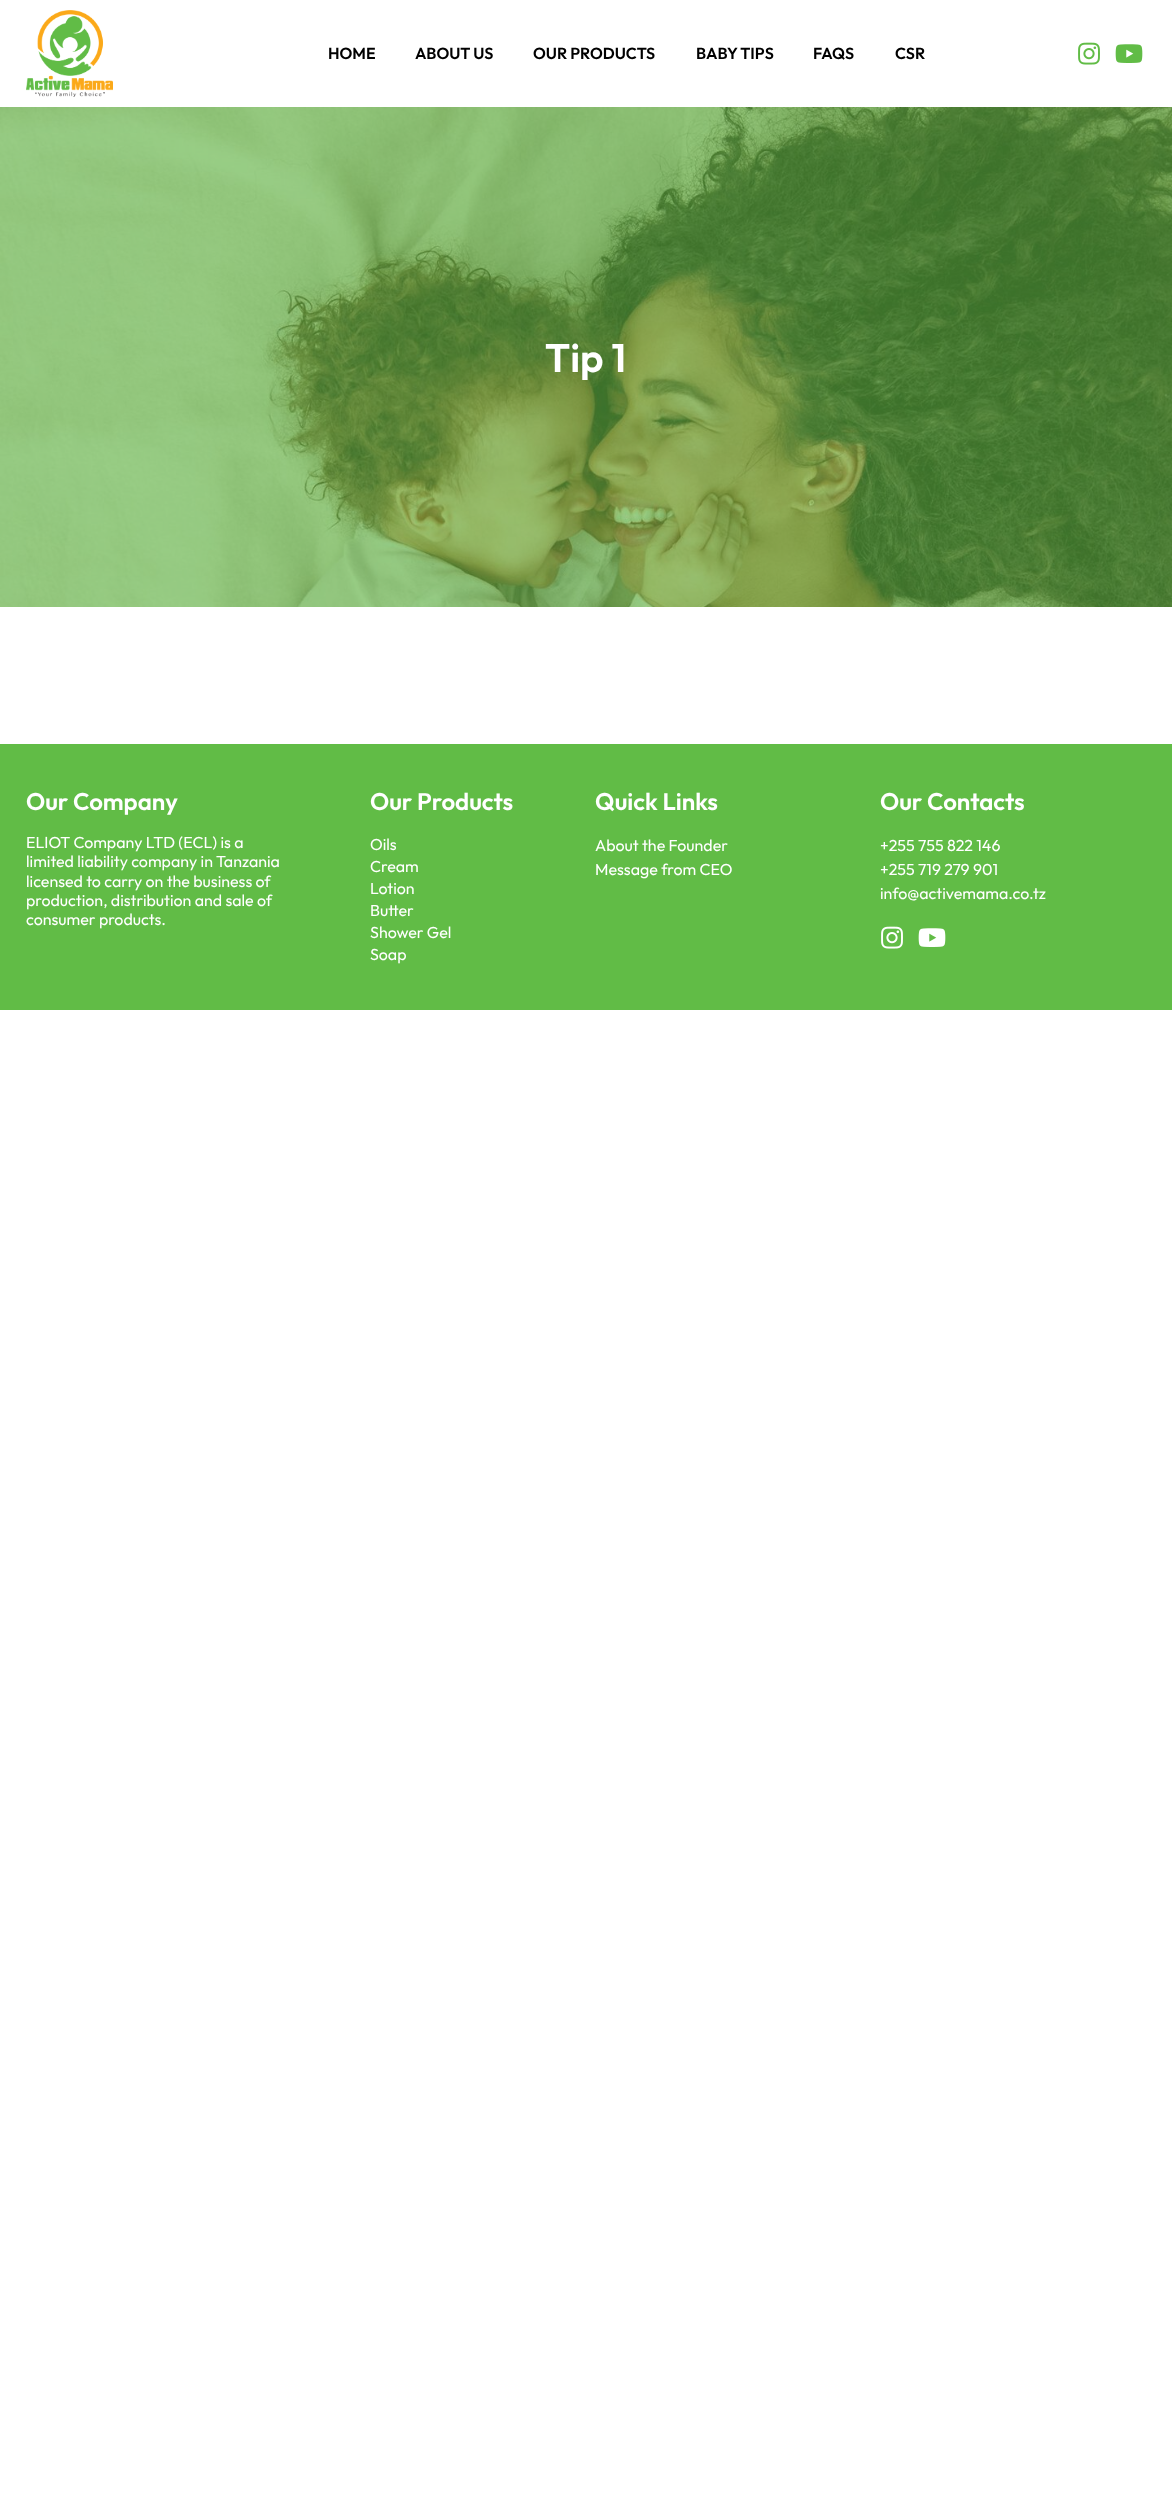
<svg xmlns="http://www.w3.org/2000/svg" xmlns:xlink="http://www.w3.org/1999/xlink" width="1172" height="2505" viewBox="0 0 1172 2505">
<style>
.cls-1{font:600 16px Outfit;fill:#000000}
.cls-2{font:600 40px Outfit;fill:#ffffff}
.cls-3{font:600 24px Outfit;fill:#ffffff}
.cls-4{font:16px Outfit;fill:#ffffff}
</style>
<rect width="100%" height="100%" fill="#ffffff"/>
<image xlink:href="image0.png" x="26" y="10" width="87" height="87"/>
<image xlink:href="image1.png" x="1078" y="42" width="22" height="23"/>
<image xlink:href="image2.png" x="1115" y="44" width="28" height="19"/>
<image xlink:href="image3.png" x="0" y="107" width="1172" height="500"/>
<rect fill="#61bc46" x="0" y="744" width="1172" height="266"/>
<image xlink:href="image4.png" x="881" y="926" width="22" height="23"/>
<image xlink:href="image5.png" x="918" y="928" width="28" height="19"/>
<text class="cls-1" x="328" y="59">HOME</text>
<text class="cls-1" x="415" y="59">ABOUT US</text>
<text class="cls-1" x="533" y="59">OUR PRODUCTS</text>
<text class="cls-1" x="696" y="59">BABY TIPS</text>
<text class="cls-1" x="813" y="59">FAQS</text>
<text class="cls-1" x="895" y="59">CSR</text>
<text class="cls-2" x="545" y="372">Tip 1</text>
<text class="cls-3" x="26" y="810">Our Company</text>
<text class="cls-4"><tspan x="26" y="848">ELIOT Company LTD (ECL) is a</tspan><tspan x="26" y="867">limited liability company in Tanzania</tspan><tspan x="26" y="887">licensed to carry on the business of</tspan><tspan x="26" y="906">production, distribution and sale of</tspan><tspan x="26" y="925">consumer products.</tspan></text>
<text class="cls-3" x="370" y="810">Our Products</text>
<text class="cls-4"><tspan x="370" y="850">Oils</tspan><tspan x="370" y="872">Cream</tspan><tspan x="370" y="894">Lotion</tspan><tspan x="370" y="916">Butter</tspan><tspan x="370" y="938">Shower Gel</tspan><tspan x="370" y="960">Soap</tspan></text>
<text class="cls-3" x="595" y="810">Quick Links</text>
<text class="cls-4"><tspan x="595" y="851">About the Founder</tspan><tspan x="595" y="875">Message from CEO</tspan></text>
<text class="cls-3" x="880" y="810">Our Contacts</text>
<text class="cls-4"><tspan x="880" y="851">+255 755 822 146</tspan><tspan x="880" y="875">+255 719 279 901</tspan><tspan x="880" y="899">info@activemama.co.tz</tspan></text>
</svg>
